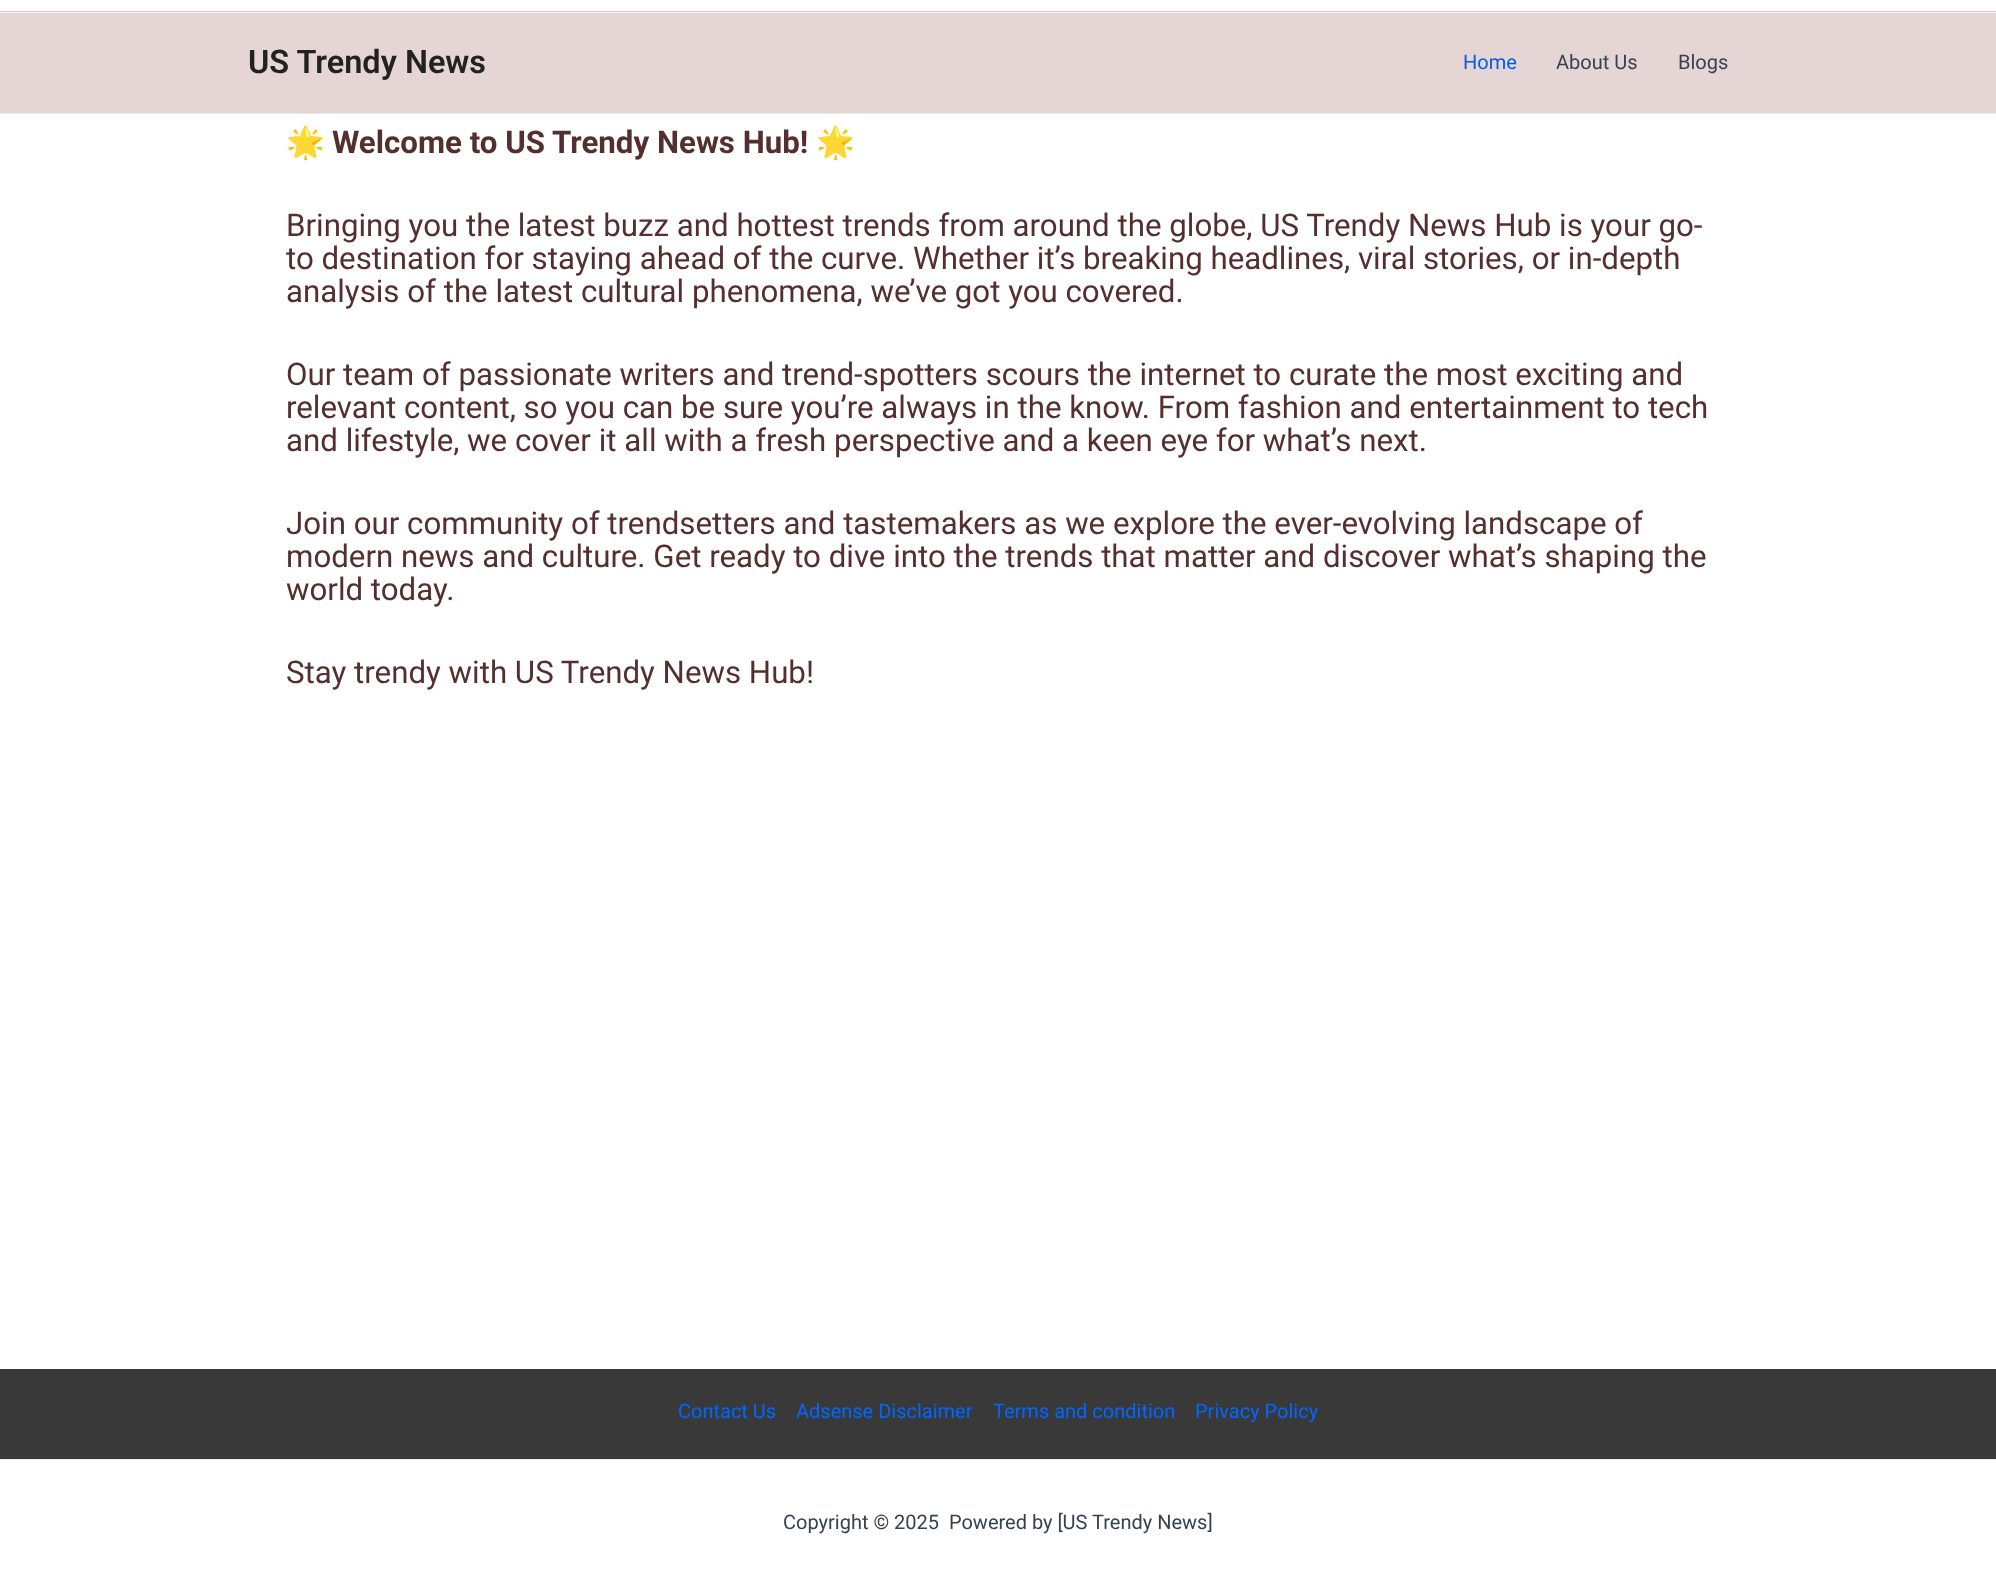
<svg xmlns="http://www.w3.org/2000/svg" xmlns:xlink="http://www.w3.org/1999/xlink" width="1996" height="1572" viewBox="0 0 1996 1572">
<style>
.cls-1{font:600 32.5px Roboto;fill:#222222}
.cls-2{font:20px Roboto;fill:#005ee9}
.cls-3{font:20px Roboto;fill:#364151}
.cls-4{font:bold 31.25px Noto Color Emoji;fill:#552f2f}
.cls-5{font:bold 31.25px Roboto;fill:#552f2f}
.cls-6{font:31.25px Roboto;fill:#552f2f}
.cls-7{font:20px Roboto;fill:#0067ff}
</style>
<rect width="100%" height="100%" fill="#ffffff"/>
<rect fill="#cccccc" x="0" y="11" width="1996" height="1"/>
<rect fill="#e6d5d5" x="0" y="13" width="1996" height="100"/>
<rect fill="#eaeaea" x="0" y="113" width="1996" height="1"/>
<rect fill="#393939" x="0" y="1369" width="1996" height="90"/>
<rect fill="#eaeaea" x="0" y="1459" width="1996" height="1"/>
<text class="cls-1" x="248" y="73">US Trendy News</text>
<text class="cls-2" x="1463" y="69">Home</text>
<text class="cls-3" x="1556" y="69">About Us</text>
<text class="cls-3" x="1678" y="69">Blogs</text>
<text class="cls-4" x="286" y="153">🌟</text>
<text class="cls-5" x="332" y="153">Welcome to US Trendy News Hub!</text>
<text class="cls-4" x="816" y="153">🌟</text>
<text class="cls-6"><tspan x="286" y="236">Bringing you the latest buzz and hottest trends from around the globe, US Trendy News Hub is your go-</tspan><tspan x="286" y="269">to destination for staying ahead of the curve. Whether it’s breaking headlines, viral stories, or in-depth</tspan><tspan x="286" y="302">analysis of the latest cultural phenomena, we’ve got you covered.</tspan></text>
<text class="cls-6"><tspan x="286" y="385">Our team of passionate writers and trend-spotters scours the internet to curate the most exciting and</tspan><tspan x="286" y="418">relevant content, so you can be sure you’re always in the know. From fashion and entertainment to tech</tspan><tspan x="286" y="451">and lifestyle, we cover it all with a fresh perspective and a keen eye for what’s next.</tspan></text>
<text class="cls-6"><tspan x="286" y="534">Join our community of trendsetters and tastemakers as we explore the ever-evolving landscape of</tspan><tspan x="286" y="567">modern news and culture. Get ready to dive into the trends that matter and discover what’s shaping the</tspan><tspan x="286" y="600">world today.</tspan></text>
<text class="cls-6" x="286" y="683">Stay trendy with US Trendy News Hub!</text>
<text class="cls-7" x="678" y="1418">Contact Us</text>
<text class="cls-7" x="796" y="1418">Adsense Disclaimer</text>
<text class="cls-7" x="993" y="1418">Terms and condition</text>
<text class="cls-7" x="1195" y="1418">Privacy Policy</text>
<text class="cls-3" xml:space="preserve" x="783" y="1529">Copyright © 2025  Powered by [US Trendy News]</text>
</svg>
